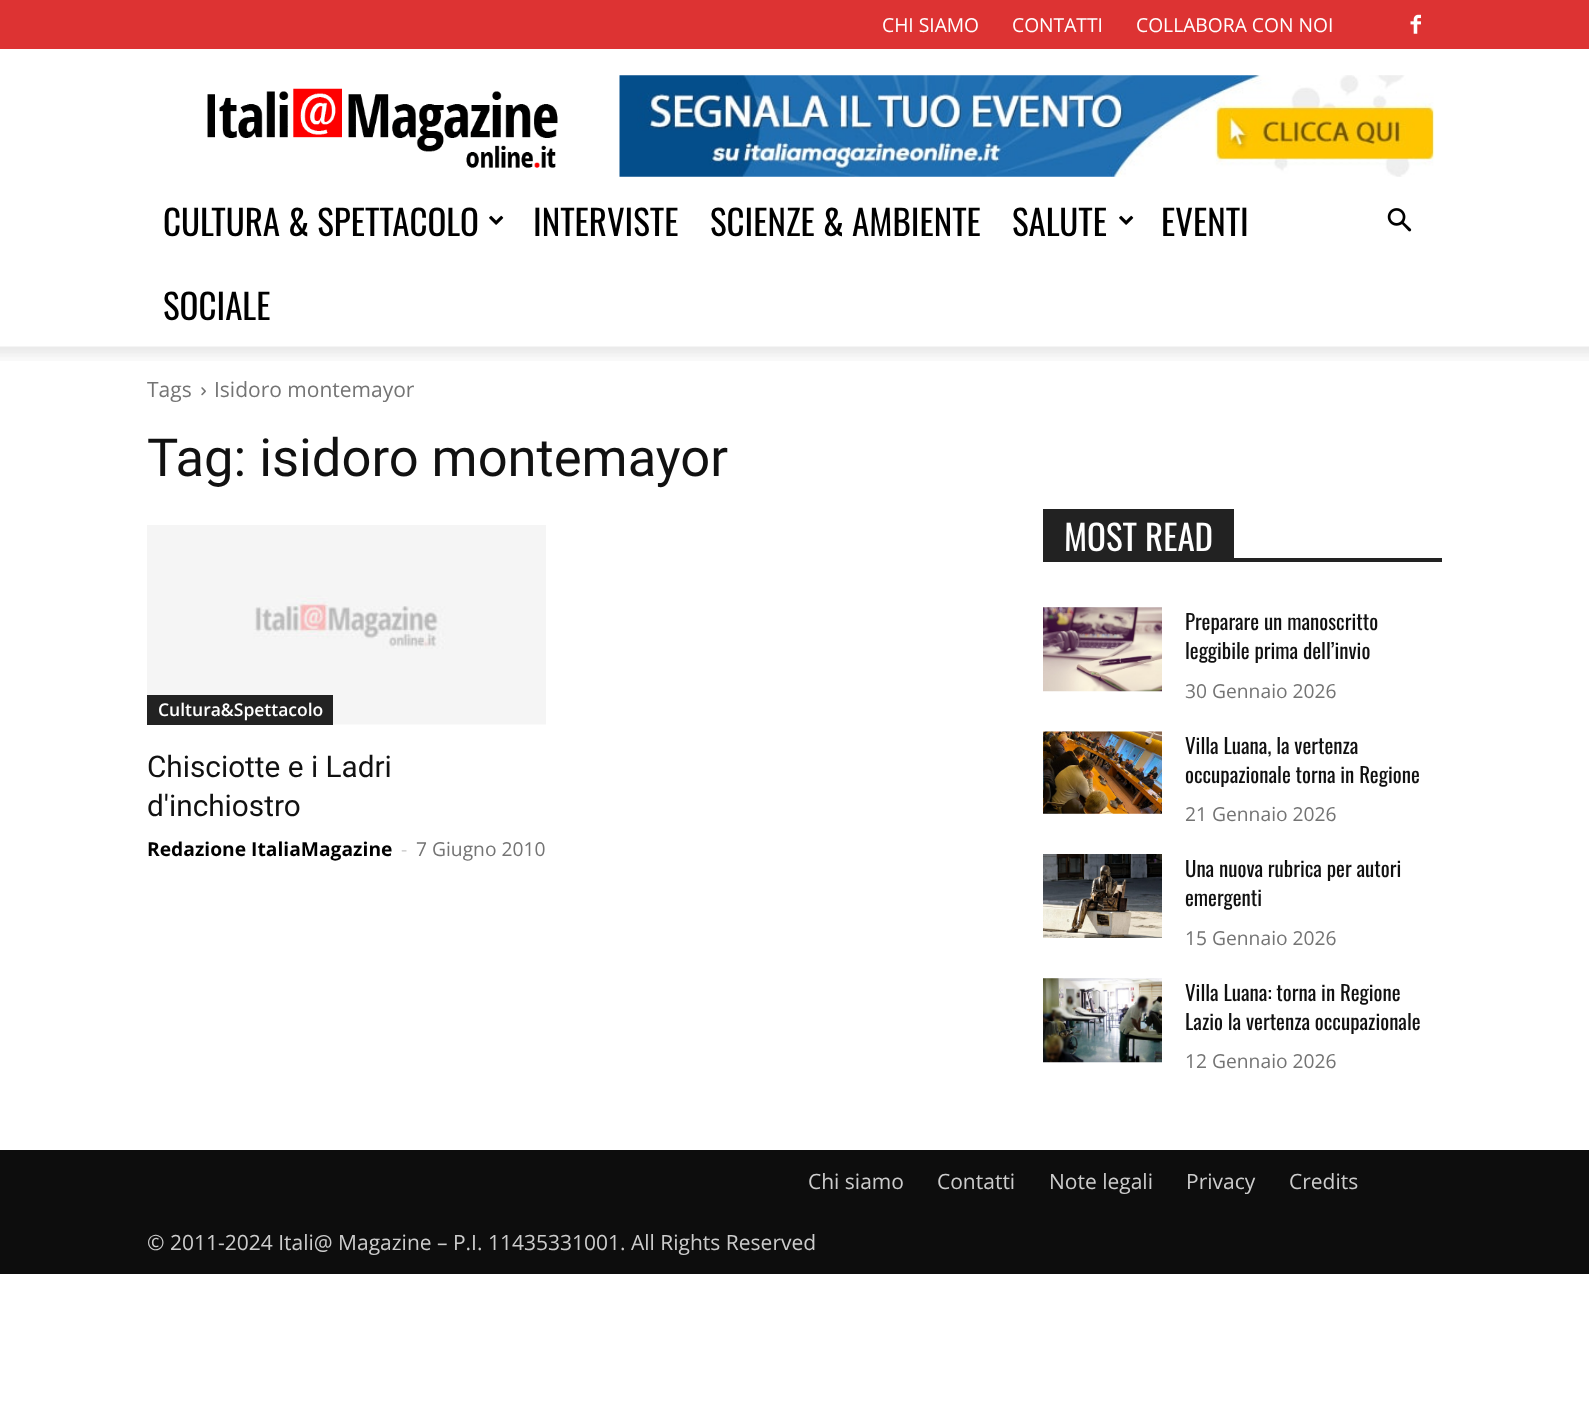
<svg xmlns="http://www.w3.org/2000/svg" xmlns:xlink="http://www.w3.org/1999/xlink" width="1589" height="1403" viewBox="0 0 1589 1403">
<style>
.cls-1{font:19.25px Open Sans;fill:#ffffff}
.cls-2{font:35px Oswald;fill:#000000}
.cls-3{font:21px Open Sans;fill:#747474}
.cls-4{font:52.5px Roboto;fill:#111111}
.cls-5{font:600 17.5px Open Sans;fill:#ffffff}
.cls-6{font:29.75px Roboto;fill:#111111}
.cls-7{font:bold 19.25px Open Sans;fill:#000000}
.cls-8{font:19.25px Open Sans;fill:#cccccc}
.cls-9{font:19.25px Open Sans;fill:#747474}
.cls-10{font:35px Oswald;fill:#ffffff}
.cls-11{font:21px Oswald;fill:#111111}
.cls-12{font:21px Open Sans;fill:#cccccc}
</style>
<rect width="100%" height="100%" fill="#ffffff"/>
<rect fill="#dd3333" x="0" y="0" width="1589" height="49"/>
<image xlink:href="image0.png" x="1410" y="14" width="11" height="20"/>
<image xlink:href="image1.png" x="207" y="88" width="351" height="80"/>
<image xlink:href="image2.png" x="619" y="75" width="816" height="102"/>
<image xlink:href="image3.png" x="489" y="215" width="15" height="10"/>
<image xlink:href="image3.png" x="1119" y="215" width="15" height="10"/>
<image xlink:href="image4.png" x="1387" y="208" width="25" height="24"/>
<image xlink:href="image5.png" x="0" y="346" width="1589" height="15"/>
<image xlink:href="image6.png" x="201" y="387" width="5" height="9"/>
<image xlink:href="image7.png" x="147" y="525" width="399" height="200"/>
<rect fill="#222222" x="147" y="695" width="186" height="30"/>
<rect fill="#222222" x="1043" y="558" width="399" height="4"/>
<rect fill="#222222" x="1043" y="509" width="191" height="49"/>
<image xlink:href="image8.png" x="1043" y="607" width="119" height="1"/>
<image xlink:href="image9.png" x="1043" y="607" width="119" height="85"/>
<image xlink:href="image10.png" x="1043" y="731" width="119" height="83"/>
<image xlink:href="image11.png" x="1043" y="731" width="119" height="83"/>
<image xlink:href="image12.png" x="1043" y="854" width="119" height="84"/>
<image xlink:href="image8.png" x="1043" y="978" width="119" height="1"/>
<image xlink:href="image13.png" x="1043" y="978" width="119" height="85"/>
<rect fill="#0d0d0d" x="0" y="1150" width="1589" height="124"/>
<text class="cls-1" x="882" y="32">CHI SIAMO</text>
<text class="cls-1" x="1012" y="32">CONTATTI</text>
<text class="cls-1" x="1136" y="32">COLLABORA CON NOI</text>
<text class="cls-2" x="163" y="236">CULTURA &amp; SPETTACOLO</text>
<text class="cls-2" x="533" y="236">INTERVISTE</text>
<text class="cls-2" x="710" y="236">SCIENZE &amp; AMBIENTE</text>
<text class="cls-2" x="1012" y="236">SALUTE</text>
<text class="cls-2" x="1161" y="236">EVENTI</text>
<text class="cls-2" x="163" y="320">SOCIALE</text>
<text class="cls-3" x="147" y="397">Tags</text>
<text class="cls-3" x="214" y="397">Isidoro montemayor</text>
<text class="cls-4" x="147" y="476">Tag: isidoro montemayor</text>
<text class="cls-5" x="158" y="716">Cultura&amp;Spettacolo</text>
<text class="cls-6"><tspan x="147" y="777">Chisciotte e i Ladri</tspan><tspan x="147" y="816">d'inchiostro</tspan></text>
<text class="cls-7" x="147" y="856">Redazione ItaliaMagazine</text>
<text class="cls-8" x="401" y="856">-</text>
<text class="cls-9" x="416" y="856">7 Giugno 2010</text>
<text class="cls-10" x="1064" y="551">MOST READ</text>
<text class="cls-11"><tspan x="1185" y="630">Preparare un manoscritto</tspan><tspan x="1185" y="659">leggibile prima dell’invio</tspan></text>
<text class="cls-9" x="1185" y="698">30 Gennaio 2026</text>
<text class="cls-11"><tspan x="1185" y="754">Villa Luana, la vertenza</tspan><tspan x="1185" y="783">occupazionale torna in Regione</tspan></text>
<text class="cls-9" x="1185" y="821">21 Gennaio 2026</text>
<text class="cls-11"><tspan x="1185" y="877">Una nuova rubrica per autori</tspan><tspan x="1185" y="906">emergenti</tspan></text>
<text class="cls-9" x="1185" y="945">15 Gennaio 2026</text>
<text class="cls-11"><tspan x="1185" y="1001">Villa Luana: torna in Regione</tspan><tspan x="1185" y="1030">Lazio la vertenza occupazionale</tspan></text>
<text class="cls-9" x="1185" y="1068">12 Gennaio 2026</text>
<text class="cls-12" x="808" y="1189">Chi siamo</text>
<text class="cls-12" x="937" y="1189">Contatti</text>
<text class="cls-12" x="1049" y="1189">Note legali</text>
<text class="cls-12" x="1186" y="1189">Privacy</text>
<text class="cls-12" x="1289" y="1189">Credits</text>
<text class="cls-12" x="147" y="1250">© 2011-2024 Itali@ Magazine – P.I. 11435331001. All Rights Reserved</text>
</svg>
